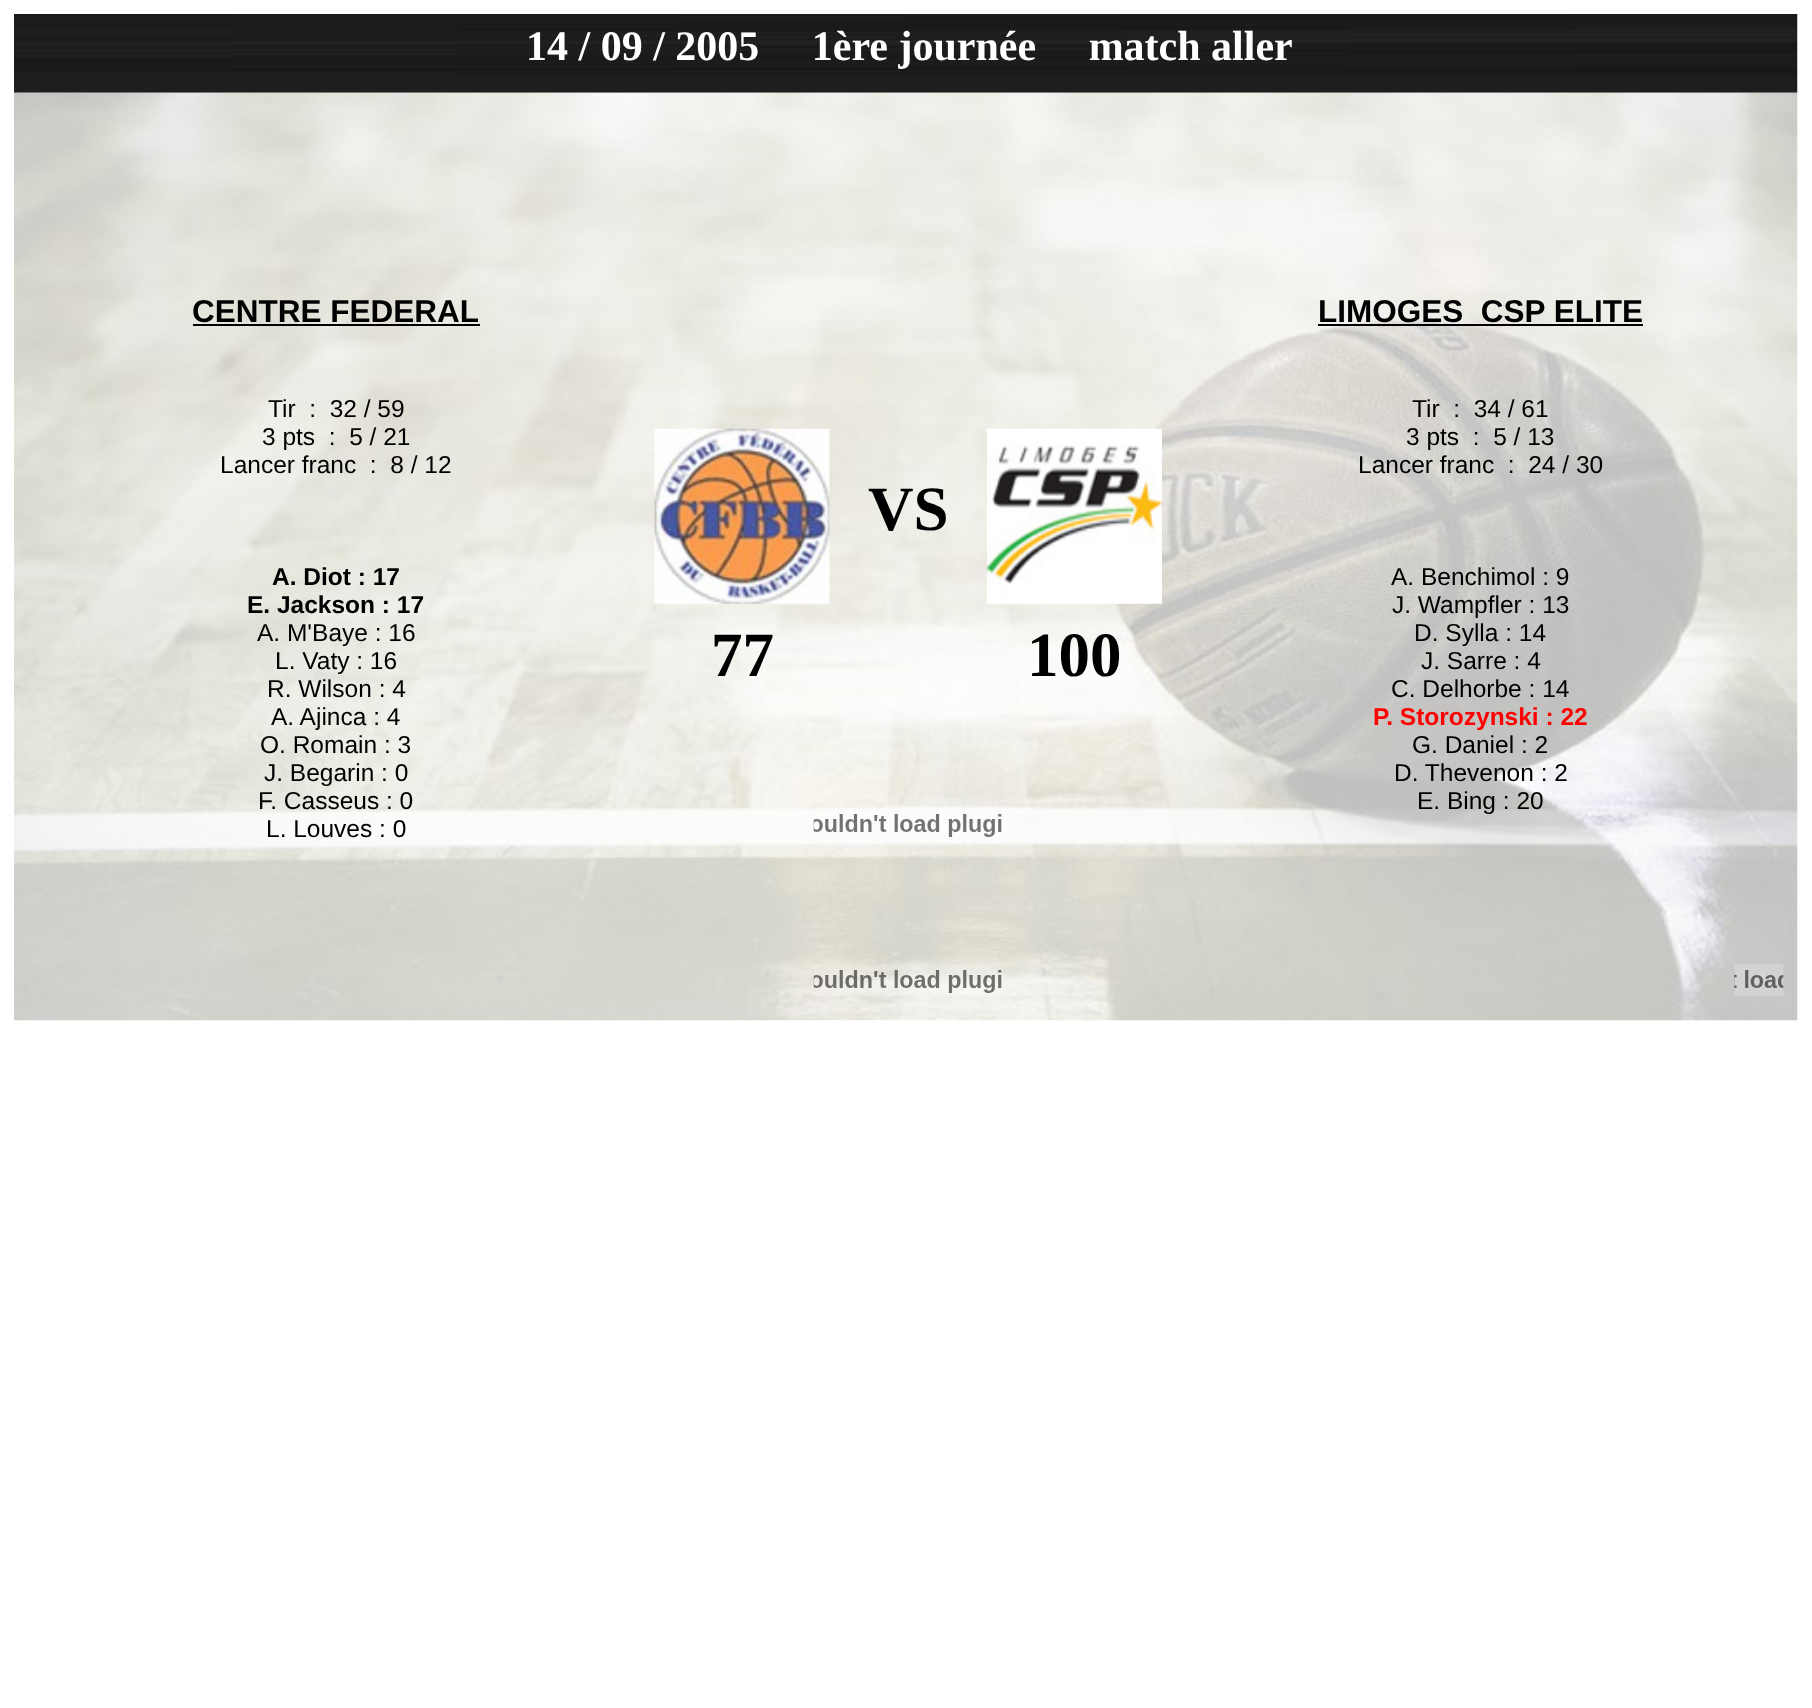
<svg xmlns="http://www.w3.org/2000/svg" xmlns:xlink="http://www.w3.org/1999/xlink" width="1812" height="1708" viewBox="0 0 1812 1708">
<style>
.cls-1{font:bold 42px Liberation Serif;fill:#ffffff}
.cls-2{font:bold 31.5px Liberation Sans;fill:#000000}
.cls-3{font:24.5px Liberation Sans;fill:#000000}
.cls-4{font:bold 24.5px Liberation Sans;fill:#000000}
.cls-5{font:bold 63px Liberation Serif;fill:#000000}
.cls-6{font:bold 24.5px Liberation Sans;fill:#ff0000}
</style>
<rect width="100%" height="100%" fill="#ffffff"/>
<image xlink:href="image0.png" x="14" y="14" width="1784" height="79"/>
<image xlink:href="image1.png" x="14" y="92" width="1784" height="929"/>
<rect fill="#000000" x="193" y="324" width="287" height="2"/>
<image xlink:href="image2.png" x="654" y="428" width="176" height="176"/>
<image xlink:href="image3.png" x="987" y="428" width="175" height="176"/>
<rect fill="#000000" x="1318" y="324" width="325" height="2"/>
<image xlink:href="image4.png" x="813" y="814" width="189" height="23"/>
<image xlink:href="image5.png" x="813" y="964" width="190" height="32"/>
<image xlink:href="image6.png" x="1734" y="964" width="50" height="32"/>
<text class="cls-1" xml:space="preserve" x="526" y="60">14 / 09 / 2005     1ère journée     match aller</text>
<text class="cls-2" x="192" y="322">CENTRE FEDERAL</text>
<text class="cls-3" xml:space="preserve" x="268" y="417">Tir  :  32 / 59</text>
<text class="cls-3" xml:space="preserve" x="262" y="445">3 pts  :  5 / 21</text>
<text class="cls-3" xml:space="preserve" x="220" y="473">Lancer franc  :  8 / 12</text>
<text class="cls-4" x="272" y="585">A. Diot : 17</text>
<text class="cls-4" x="247" y="613">E. Jackson : 17</text>
<text class="cls-3" x="257" y="641">A. M'Baye : 16</text>
<text class="cls-3" x="275" y="669">L. Vaty : 16</text>
<text class="cls-3" x="267" y="697">R. Wilson : 4</text>
<text class="cls-3" x="271" y="725">A. Ajinca : 4</text>
<text class="cls-3" x="260" y="753">O. Romain : 3</text>
<text class="cls-3" x="264" y="781">J. Begarin : 0</text>
<text class="cls-3" x="258" y="809">F. Casseus : 0</text>
<text class="cls-3" x="266" y="837">L. Louves : 0</text>
<text class="cls-5" x="868" y="530">VS</text>
<text class="cls-2" xml:space="preserve" x="1318" y="322">LIMOGES  CSP ELITE</text>
<text class="cls-3" xml:space="preserve" x="1412" y="417">Tir  :  34 / 61</text>
<text class="cls-3" xml:space="preserve" x="1406" y="445">3 pts  :  5 / 13</text>
<text class="cls-3" xml:space="preserve" x="1358" y="473">Lancer franc  :  24 / 30</text>
<text class="cls-3" x="1391" y="585">A. Benchimol : 9</text>
<text class="cls-3" x="1392" y="613">J. Wampfler : 13</text>
<text class="cls-3" x="1414" y="641">D. Sylla : 14</text>
<text class="cls-3" x="1421" y="669">J. Sarre : 4</text>
<text class="cls-3" x="1391" y="697">C. Delhorbe : 14</text>
<text class="cls-6" x="1373" y="725">P. Storozynski : 22</text>
<text class="cls-3" x="1412" y="753">G. Daniel : 2</text>
<text class="cls-3" x="1394" y="781">D. Thevenon : 2</text>
<text class="cls-3" x="1417" y="809">E. Bing : 20</text>
<text class="cls-5" x="711" y="676">77</text>
<text class="cls-5" x="1027" y="676">100</text>
</svg>
